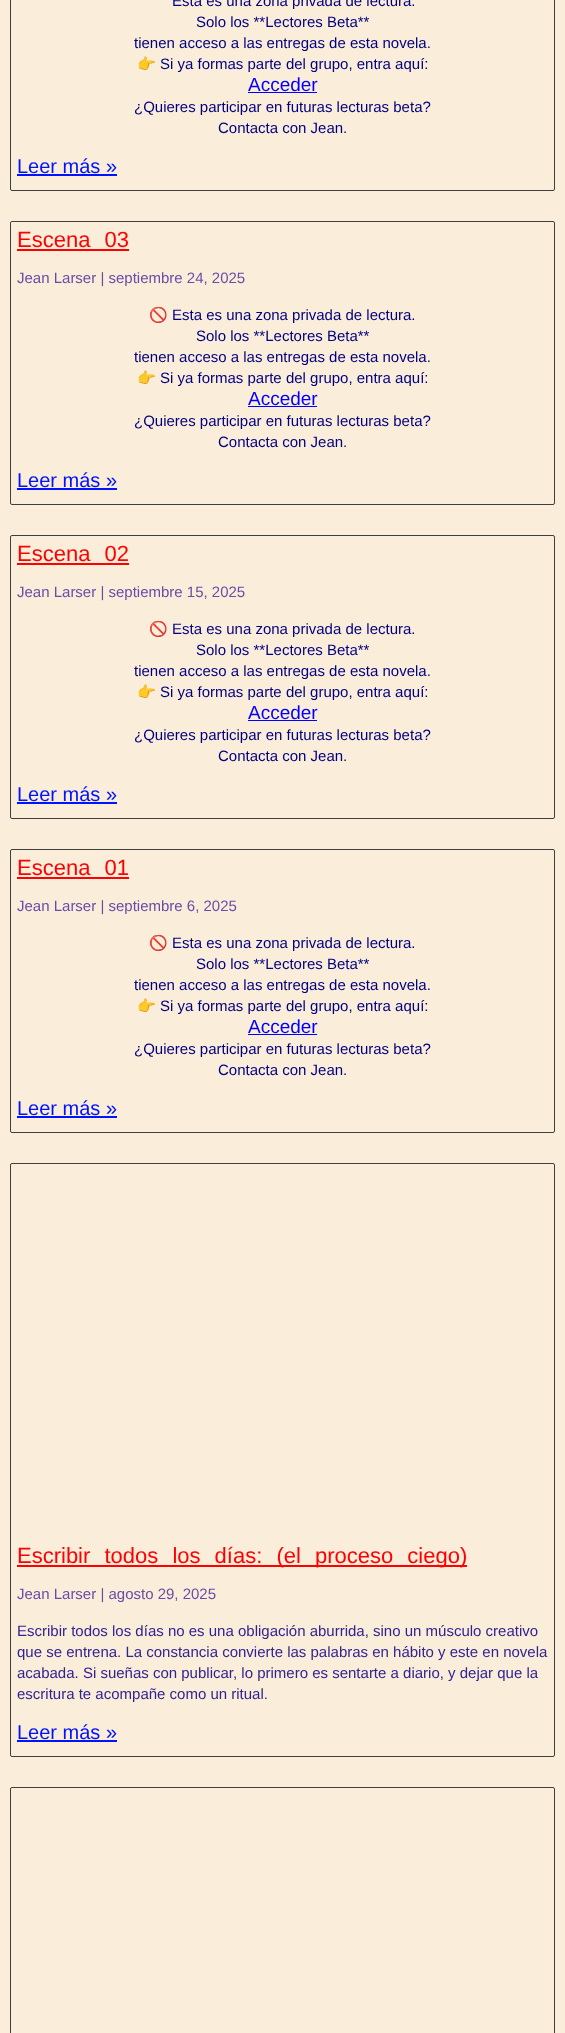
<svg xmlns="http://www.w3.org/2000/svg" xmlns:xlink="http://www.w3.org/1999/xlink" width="565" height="2033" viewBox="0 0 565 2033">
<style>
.cls-1{font:15px Liberation Sans;fill:#000080}
.cls-2{font:15px Noto Color Emoji;fill:#000080}
.cls-3{font:19px Liberation Sans;fill:#0100ff}
.cls-4{font:20px Liberation Sans;fill:#0013ff}
.cls-5{font:22px Liberation Sans;fill:#ff0000}
.cls-6{font:15px Liberation Sans;fill:#694ca8}
.cls-7{font:15px Liberation Sans;fill:#322392}
</style>
<rect width="100%" height="100%" fill="#faedda"/>
<rect fill="none" stroke="#3f3f3f" x="10.5" y="-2.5" width="544" height="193" rx="1.5"/>
<rect fill="#0100ff" x="248" y="92" width="69" height="1"/>
<rect fill="#0013ff" x="17" y="174" width="100" height="2"/>
<rect fill="none" stroke="#3f3f3f" x="10.5" y="221.5" width="544" height="283" rx="1.5"/>
<rect fill="#ff0000" x="17" y="249" width="112" height="2"/>
<rect fill="#0100ff" x="248" y="406" width="69" height="1"/>
<rect fill="#0013ff" x="17" y="488" width="100" height="2"/>
<rect fill="none" stroke="#3f3f3f" x="10.5" y="535.5" width="544" height="283" rx="1.5"/>
<rect fill="#ff0000" x="17" y="563" width="112" height="2"/>
<rect fill="#0100ff" x="248" y="720" width="69" height="1"/>
<rect fill="#0013ff" x="17" y="802" width="100" height="2"/>
<rect fill="none" stroke="#3f3f3f" x="10.5" y="849.5" width="544" height="283" rx="1.5"/>
<rect fill="#ff0000" x="17" y="877" width="112" height="2"/>
<rect fill="#0100ff" x="248" y="1034" width="69" height="1"/>
<rect fill="#0013ff" x="17" y="1116" width="100" height="2"/>
<rect fill="none" stroke="#3f3f3f" x="10.5" y="1163.5" width="544" height="593" rx="1.5"/>
<rect fill="#ff0000" x="17" y="1565" width="450" height="2"/>
<rect fill="#0013ff" x="17" y="1740" width="100" height="2"/>
<rect fill="none" stroke="#3f3f3f" x="10.5" y="1787.5" width="544" height="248" rx="1.5"/>
<text class="cls-1" x="172" y="6">Esta es una zona privada de lectura.</text>
<text class="cls-1" x="196" y="27">Solo los **Lectores Beta**</text>
<text class="cls-1" x="134" y="48">tienen acceso a las entregas de esta novela.</text>
<text class="cls-2" x="137" y="69">👉</text>
<text class="cls-1" x="160" y="69">Si ya formas parte del grupo, entra aquí:</text>
<text class="cls-3" x="248" y="91">Acceder</text>
<text class="cls-1" x="134" y="112">¿Quieres participar en futuras lecturas beta?</text>
<text class="cls-1" x="218" y="133">Contacta con Jean.</text>
<text class="cls-4" x="17" y="173">Leer más »</text>
<text class="cls-5" x="17" y="247" word-spacing="8">Escena 03</text>
<text class="cls-6" x="17" y="283">Jean Larser | septiembre 24, 2025</text>
<text class="cls-2" x="149" y="320">🚫</text>
<text class="cls-1" x="172" y="320">Esta es una zona privada de lectura.</text>
<text class="cls-1" x="196" y="341">Solo los **Lectores Beta**</text>
<text class="cls-1" x="134" y="362">tienen acceso a las entregas de esta novela.</text>
<text class="cls-2" x="137" y="383">👉</text>
<text class="cls-1" x="160" y="383">Si ya formas parte del grupo, entra aquí:</text>
<text class="cls-3" x="248" y="405">Acceder</text>
<text class="cls-1" x="134" y="426">¿Quieres participar en futuras lecturas beta?</text>
<text class="cls-1" x="218" y="447">Contacta con Jean.</text>
<text class="cls-4" x="17" y="487">Leer más »</text>
<text class="cls-5" x="17" y="561" word-spacing="8">Escena 02</text>
<text class="cls-6" x="17" y="597">Jean Larser | septiembre 15, 2025</text>
<text class="cls-2" x="149" y="634">🚫</text>
<text class="cls-1" x="172" y="634">Esta es una zona privada de lectura.</text>
<text class="cls-1" x="196" y="655">Solo los **Lectores Beta**</text>
<text class="cls-1" x="134" y="676">tienen acceso a las entregas de esta novela.</text>
<text class="cls-2" x="137" y="697">👉</text>
<text class="cls-1" x="160" y="697">Si ya formas parte del grupo, entra aquí:</text>
<text class="cls-3" x="248" y="719">Acceder</text>
<text class="cls-1" x="134" y="740">¿Quieres participar en futuras lecturas beta?</text>
<text class="cls-1" x="218" y="761">Contacta con Jean.</text>
<text class="cls-4" x="17" y="801">Leer más »</text>
<text class="cls-5" x="17" y="875" word-spacing="8">Escena 01</text>
<text class="cls-6" x="17" y="911">Jean Larser | septiembre 6, 2025</text>
<text class="cls-2" x="149" y="948">🚫</text>
<text class="cls-1" x="172" y="948">Esta es una zona privada de lectura.</text>
<text class="cls-1" x="196" y="969">Solo los **Lectores Beta**</text>
<text class="cls-1" x="134" y="990">tienen acceso a las entregas de esta novela.</text>
<text class="cls-2" x="137" y="1011">👉</text>
<text class="cls-1" x="160" y="1011">Si ya formas parte del grupo, entra aquí:</text>
<text class="cls-3" x="248" y="1033">Acceder</text>
<text class="cls-1" x="134" y="1054">¿Quieres participar en futuras lecturas beta?</text>
<text class="cls-1" x="218" y="1075">Contacta con Jean.</text>
<text class="cls-4" x="17" y="1115">Leer más »</text>
<text class="cls-5" x="17" y="1563" word-spacing="8">Escribir todos los días: (el proceso ciego)</text>
<text class="cls-6" x="17" y="1599">Jean Larser | agosto 29, 2025</text>
<text class="cls-7"><tspan x="17" y="1636">Escribir todos los días no es una obligación aburrida, sino un músculo creativo</tspan><tspan x="17" y="1657">que se entrena. La constancia convierte las palabras en hábito y este en novela</tspan><tspan x="17" y="1678">acabada. Si sueñas con publicar, lo primero es sentarte a diario, y dejar que la</tspan><tspan x="17" y="1699">escritura te acompañe como un ritual.</tspan></text>
<text class="cls-4" x="17" y="1739">Leer más »</text>
</svg>
